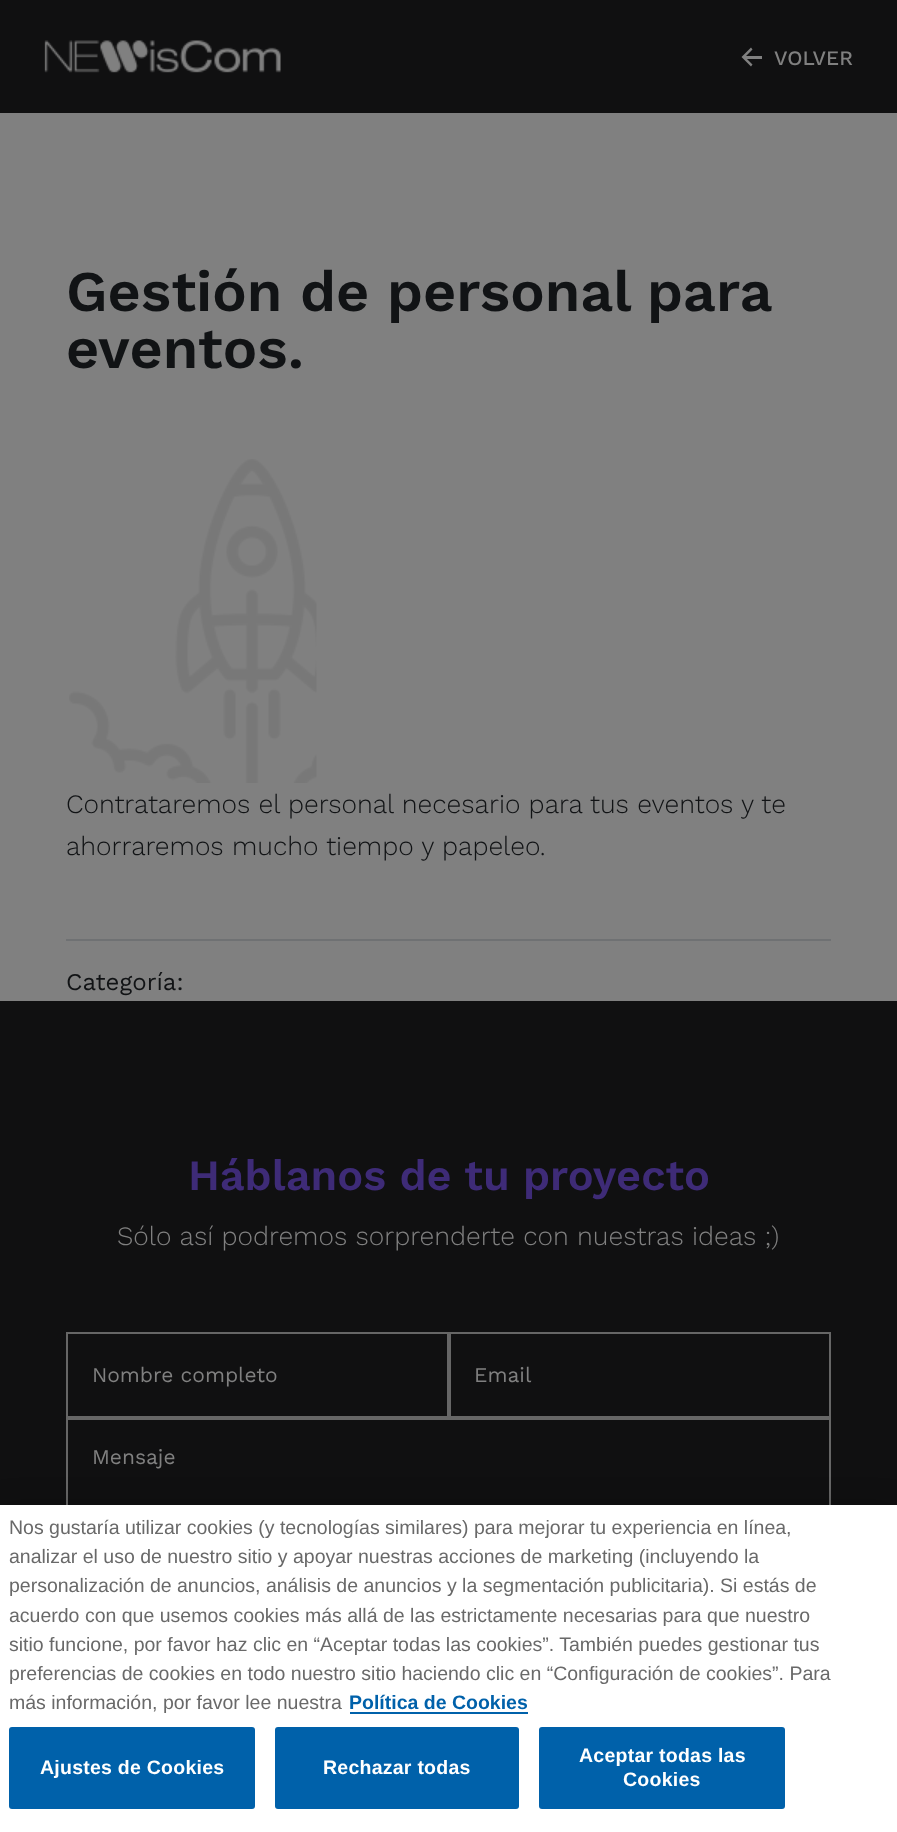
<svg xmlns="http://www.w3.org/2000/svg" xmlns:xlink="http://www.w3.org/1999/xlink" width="897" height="1832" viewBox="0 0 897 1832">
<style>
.cls-1{font:500 20.5px Work Sans;fill:#808080}
.cls-2{font:600 57.5px Work Sans;fill:#111315}
.cls-3{font:300 26.4px Work Sans;fill:#111315}
.cls-4{font:24px Work Sans;fill:#111315}
.cls-5{font:600 43.25px Work Sans;fill:#3e2b77}
.cls-6{font:300 26.4px Work Sans;fill:#808080}
.cls-7{font:21px Work Sans;fill:#808080}
.cls-8{font:19.5px Liberation Sans;fill:#696969}
.cls-9{font:bold 19.5px Liberation Sans;fill:#0061aa}
.cls-10{font:bold 19.5px Liberation Sans;letter-spacing:0.25px;fill:#ffffff}
</style>
<rect width="100%" height="100%" fill="#808080"/>
<rect fill="#101011" x="0" y="0" width="897" height="113"/>
<image xlink:href="image0.png" x="44" y="40" width="237" height="33"/>
<path fill="#808080" d="M751 47.5L741.5 57L751 66.5L752.5 64.5L745 57L752.5 49.5Z"/>
<rect fill="#808080" x="744" y="56" width="18" height="3"/>
<image xlink:href="image1.png" x="69" y="459" width="248" height="324"/>
<rect fill="#6f7173" x="66" y="939" width="765" height="2"/>
<rect fill="#101011" x="0" y="1001" width="897" height="504"/>
<rect fill="none" stroke="#666666" stroke-width="2" x="67" y="1333" width="381" height="84"/>
<rect fill="none" stroke="#666666" stroke-width="2" x="450" y="1333" width="380" height="84"/>
<rect fill="none" stroke="#666666" stroke-width="2" x="67" y="1419" width="763" height="253"/>
<rect fill="#000000" fill-opacity="0.2" filter="blur(13.5px)" x="0" y="1505" width="897" height="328"/>
<rect fill="#ffffff" x="0" y="1505" width="897" height="327"/>
<rect fill="#0061aa" x="350" y="1712" width="178" height="2"/>
<rect fill="#0061aa" x="9" y="1727" width="246" height="82" rx="3"/>
<rect fill="#0061aa" x="275" y="1727" width="244" height="82" rx="3"/>
<rect fill="#0061aa" x="539" y="1727" width="246" height="82" rx="3"/>
<text class="cls-1" x="774" y="65">VOLVER</text>
<text class="cls-2" x="66" y="311">Gestión de</text>
<text class="cls-2" x="387" y="311" word-spacing="-1">personal para</text>
<text class="cls-2" x="66" y="368">eventos.</text>
<text class="cls-3"><tspan x="66" y="813">Contrataremos el personal necesario para tus eventos y te</tspan><tspan x="66" y="855">ahorraremos mucho tiempo y papeleo.</tspan></text>
<text class="cls-4" x="66" y="990">Categoría:</text>
<text class="cls-5" x="188" y="1190">Háblanos de tu proyecto</text>
<text class="cls-6" x="117" y="1245">Sólo así podremos sorprenderte con nuestras ideas ;)</text>
<text class="cls-7" x="92" y="1382">Nombre completo</text>
<text class="cls-7" x="474" y="1382">Email</text>
<text class="cls-7" x="92" y="1464">Mensaje</text>
<text class="cls-8"><tspan x="9" y="1534">Nos gustaría utilizar cookies (y tecnologías similares) para mejorar tu experiencia en línea,</tspan><tspan x="9" y="1563">analizar el uso de nuestro sitio y apoyar nuestras acciones de marketing (incluyendo la</tspan><tspan x="9" y="1592">personalización de anuncios, análisis de anuncios y la segmentación publicitaria). Si estás de</tspan><tspan x="9" y="1622">acuerdo con que usemos cookies más allá de las estrictamente necesarias para que nuestro</tspan><tspan x="9" y="1651">sitio funcione, por favor haz clic en “Aceptar todas las cookies”. También puedes gestionar tus</tspan><tspan x="9" y="1680">preferencias de cookies en todo nuestro sitio haciendo clic en “Configuración de cookies”. Para</tspan><tspan x="9" y="1709">más información, por favor lee nuestra</tspan></text>
<text class="cls-9" x="349" y="1709">Política de Cookies</text>
<text class="cls-10" x="40" y="1774">Ajustes de Cookies</text>
<text class="cls-10" x="323" y="1774">Rechazar todas</text>
<text class="cls-10" x="579" y="1762">Aceptar todas las</text>
<text class="cls-10" x="623" y="1786">Cookies</text>
</svg>
